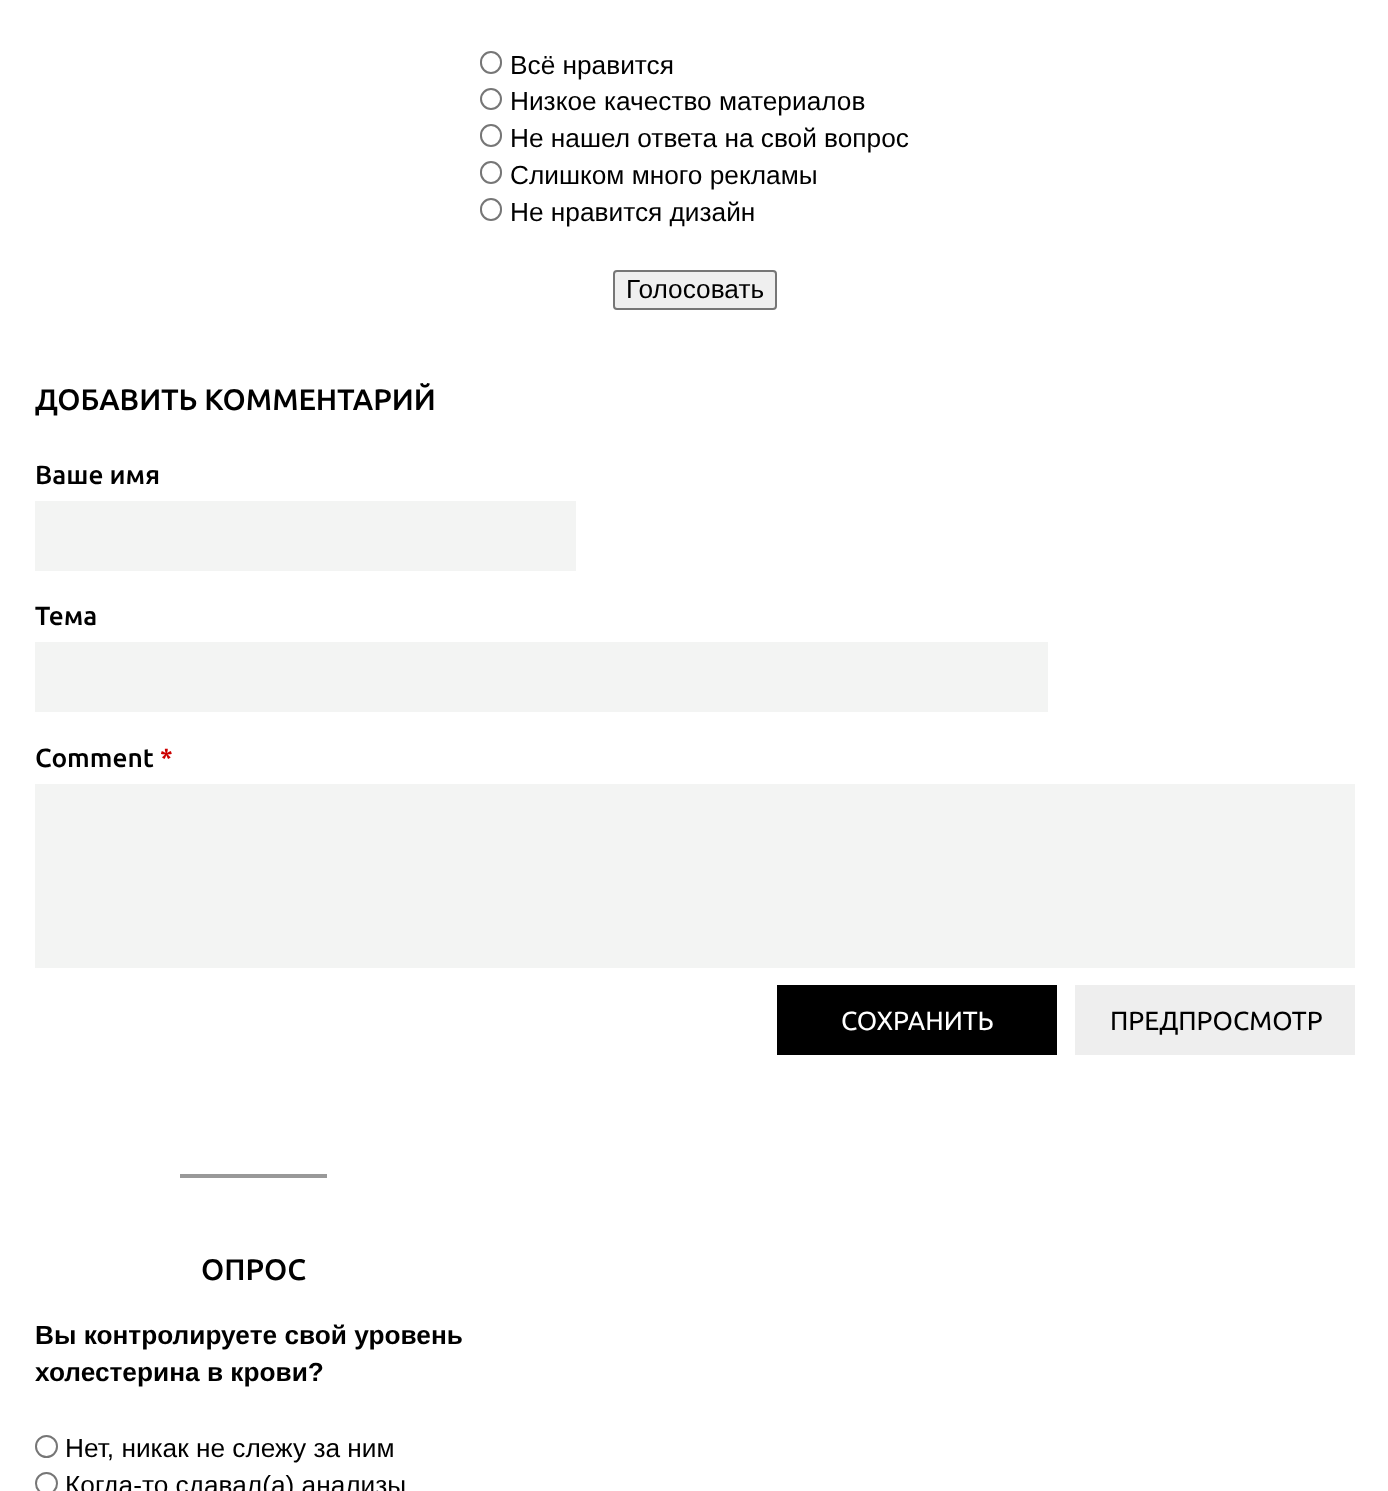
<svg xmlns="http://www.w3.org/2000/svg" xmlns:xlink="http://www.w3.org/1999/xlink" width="1388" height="1491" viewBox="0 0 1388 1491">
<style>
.cls-1{font:26.25px Liberation Sans;fill:#000000}
.cls-2{font:500 29.75px Ubuntu;fill:#000000}
.cls-3{font:500 26.25px Ubuntu;fill:#000000}
.cls-4{font:500 26.25px Ubuntu;fill:#cc0000}
.cls-5{font:26.25px Ubuntu;fill:#ffffff}
.cls-6{font:26.25px Ubuntu;fill:#000000}
.cls-7{font:bold 26.25px Liberation Sans;fill:#000000}
</style>
<rect width="100%" height="100%" fill="#ffffff"/>
<rect fill="none" stroke="#767676" stroke-width="2" x="481" y="52" width="20" height="21" rx="10"/>
<circle fill="none" stroke="#767676" stroke-width="2" cx="491" cy="99" r="10"/>
<rect fill="none" stroke="#767676" stroke-width="2" x="481" y="125" width="20" height="21" rx="10"/>
<rect fill="none" stroke="#767676" stroke-width="2" x="481" y="162" width="20" height="21" rx="10"/>
<rect fill="none" stroke="#767676" stroke-width="2" x="481" y="199" width="20" height="21" rx="10"/>
<rect fill="#efefef" stroke="#767676" stroke-width="2" x="614" y="271" width="162" height="38" rx="3"/>
<rect fill="#f3f4f3" x="35" y="501" width="541" height="70"/>
<rect fill="#f3f4f3" x="35" y="642" width="1013" height="70"/>
<rect fill="#f3f4f3" x="35" y="784" width="1320" height="184"/>
<rect fill="#000000" x="777" y="985" width="280" height="70"/>
<rect fill="#eeeeee" x="1075" y="985" width="280" height="70"/>
<rect fill="#999999" x="180" y="1174" width="147" height="4"/>
<circle fill="none" stroke="#767676" stroke-width="2" cx="46.5" cy="1446.5" r="10.5"/>
<circle fill="none" stroke="#767676" stroke-width="2" cx="46.5" cy="1483.5" r="10.5"/>
<text class="cls-1"><tspan x="510" y="74">Всё нравится</tspan><tspan x="510" y="110">Низкое качество материалов</tspan><tspan x="510" y="147">Не нашел ответа на свой вопрос</tspan><tspan x="510" y="184">Слишком много рекламы</tspan><tspan x="510" y="221">Не нравится дизайн</tspan></text>
<text class="cls-1" x="626" y="298">Голосовать</text>
<text class="cls-2" x="35" y="410">ДОБАВИТЬ КОММЕНТАРИЙ</text>
<text class="cls-3" x="35" y="484">Ваше имя</text>
<text class="cls-3" x="35" y="625">Тема</text>
<text class="cls-3" x="35" y="767">Comment</text>
<text class="cls-4" x="160" y="767">*</text>
<text class="cls-5" x="841" y="1030">СОХРАНИТЬ</text>
<text class="cls-6" x="1110" y="1030">ПРЕДПРОСМОТР</text>
<text class="cls-2" x="201" y="1280">ОПРОС</text>
<text class="cls-7"><tspan x="35" y="1344">Вы контролируете свой уровень</tspan><tspan x="35" y="1381">холестерина в крови?</tspan></text>
<text class="cls-1"><tspan x="65" y="1457">Нет, никак не слежу за ним</tspan><tspan x="65" y="1494">Когда-то сдавал(а) анализы</tspan></text>
</svg>
